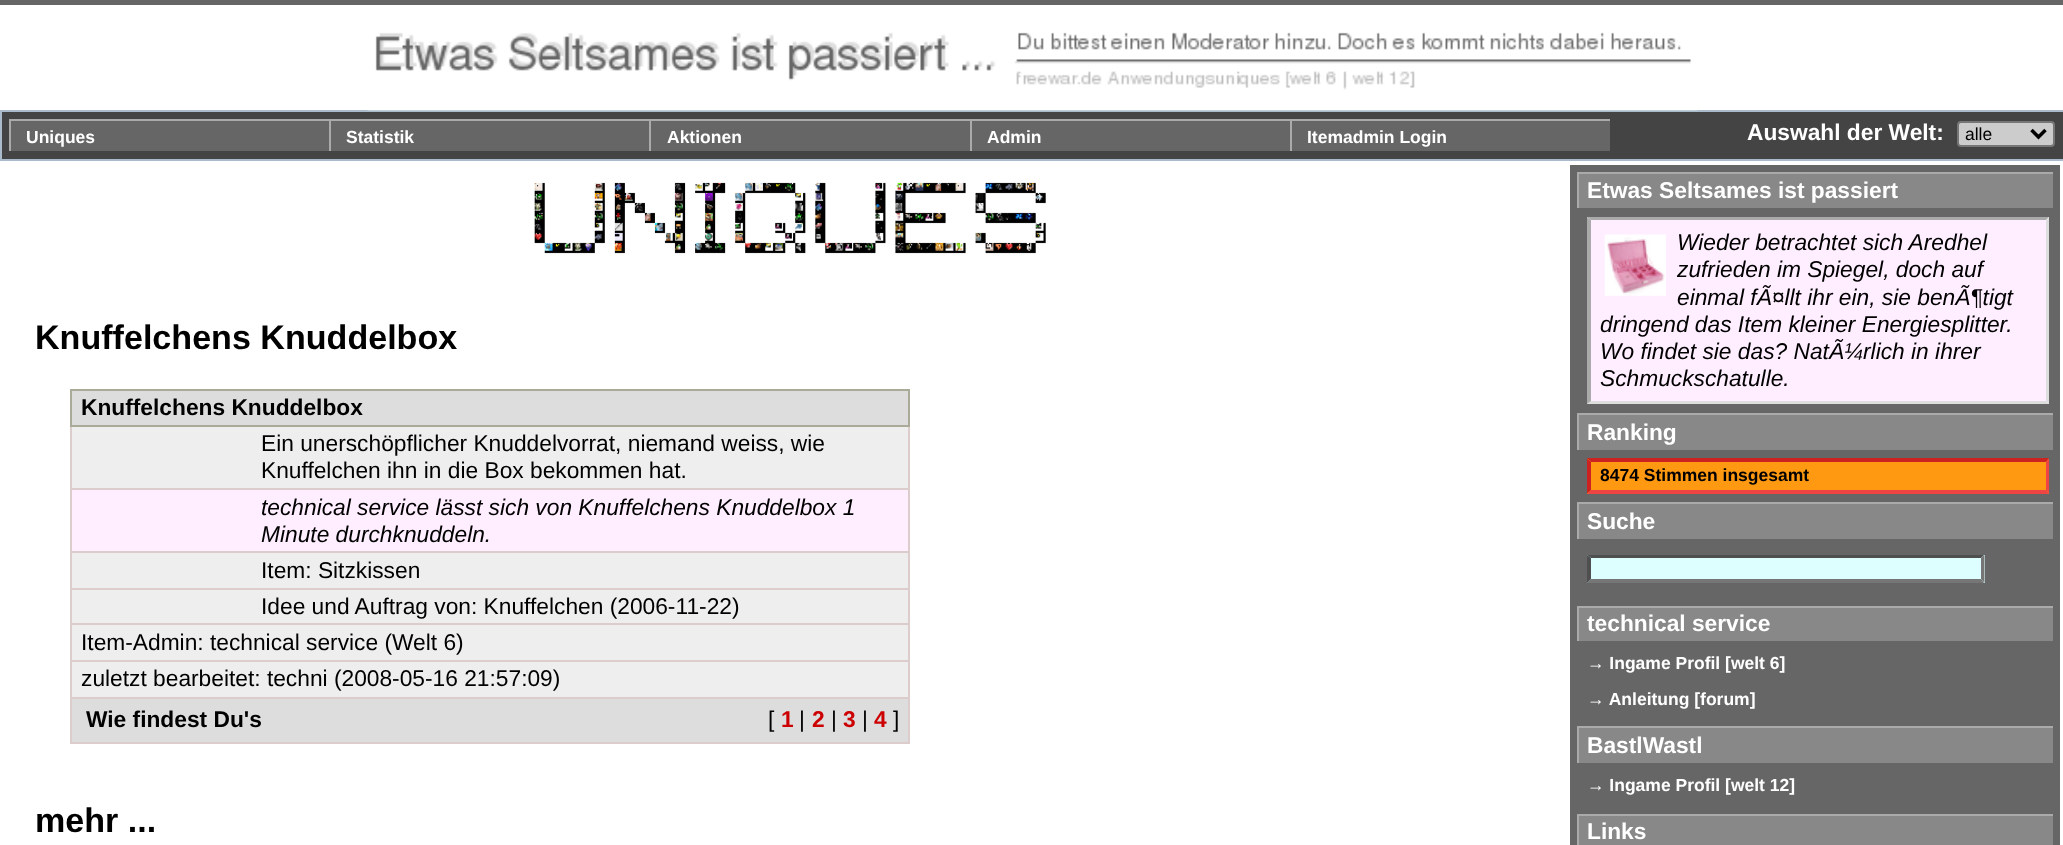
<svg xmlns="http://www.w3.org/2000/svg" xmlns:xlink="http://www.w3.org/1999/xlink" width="2063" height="845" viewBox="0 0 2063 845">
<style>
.cls-1{font:bold 17.5px Liberation Sans;fill:#ffffff}
.cls-2{font:bold 22.75px Liberation Sans;fill:#ffffff}
.cls-3{font:17.5px Liberation Sans;fill:#000000}
.cls-4{font:italic 22.75px Liberation Sans;fill:#000000}
.cls-5{font:bold 17.5px Liberation Sans;fill:#000000}
.cls-6{font:bold 34.1px Liberation Sans;fill:#000000}
.cls-7{font:bold 22.75px Liberation Sans;fill:#000000}
.cls-8{font:22.75px Liberation Sans;fill:#000000}
.cls-9{font:bold 22.75px Liberation Sans;fill:#cc0000}
</style>
<rect width="100%" height="100%" fill="#ffffff"/>
<rect fill="#666666" x="0" y="0" width="2063" height="5"/>
<rect fill="#444444" stroke="#aabbcc" stroke-width="2" x="1" y="111" width="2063" height="49"/>
<image xlink:href="image0.png" x="367" y="32" width="1331" height="79"/>
<rect fill="#666666" x="11" y="121" width="318" height="30"/>
<rect fill="#aaaaaa" x="9" y="119" width="1601" height="2"/>
<rect fill="#aaaaaa" x="9" y="119" width="2" height="32"/>
<rect fill="#666666" x="331" y="121" width="318" height="30"/>
<rect fill="#aaaaaa" x="329" y="119" width="2" height="32"/>
<rect fill="#666666" x="651" y="121" width="319" height="30"/>
<rect fill="#aaaaaa" x="649" y="119" width="2" height="32"/>
<rect fill="#666666" x="972" y="121" width="318" height="30"/>
<rect fill="#aaaaaa" x="970" y="119" width="2" height="32"/>
<rect fill="#666666" x="1292" y="121" width="318" height="30"/>
<rect fill="#aaaaaa" x="1290" y="119" width="2" height="32"/>
<rect fill="#cccccc" stroke="#767676" stroke-width="2" x="1958" y="122" width="96" height="24" rx="3"/>
<path fill="none" stroke="#000000" stroke-width="3.5" d="M2031.5 130L2038.5 137L2045.5 130"/>
<image xlink:href="image1.png" x="534" y="182" width="512" height="72"/>
<rect fill="#666666" x="1570" y="165" width="490" height="680"/>
<rect fill="#888888" x="1579" y="174" width="474" height="34"/>
<rect fill="#aaaaaa" x="1577" y="172" width="476" height="2"/>
<rect fill="#aaaaaa" x="1577" y="172" width="2" height="36"/>
<rect fill="#ffeeff" x="1587" y="217" width="462" height="187"/>
<path fill="#aaaaaa" d="M1587 217H2049L2046 220H1591Z"/>
<path fill="#dddddd" d="M2049 217V404L2046 401V220Z"/>
<path fill="#dddddd" d="M2049 404H1587L1591 401H2046Z"/>
<path fill="#aaaaaa" d="M1587 404V217L1591 220V401Z"/>
<image xlink:href="image2.png" x="1604" y="234" width="62" height="62"/>
<rect fill="#888888" x="1579" y="415" width="474" height="35"/>
<rect fill="#aaaaaa" x="1577" y="413" width="476" height="2"/>
<rect fill="#aaaaaa" x="1577" y="413" width="2" height="37"/>
<rect fill="#ff9911" x="1587" y="459" width="462" height="35"/>
<path fill="#cc2222" d="M1587 458H2049L2046 462H1591Z"/>
<path fill="#ee4444" d="M2049 458.5V493.5L2046 490V462Z"/>
<path fill="#ee4444" d="M2049 494H1587L1591 490H2046Z"/>
<path fill="#cc2222" d="M1587 493.5V458.5L1591 462V490Z"/>
<rect fill="#888888" x="1579" y="504" width="474" height="35"/>
<rect fill="#aaaaaa" x="1577" y="502" width="476" height="2"/>
<rect fill="#aaaaaa" x="1577" y="502" width="2" height="37"/>
<rect fill="#ddffff" x="1587" y="555" width="398" height="28"/>
<path fill="#4f4f4f" d="M1587 555H1984L1981 558H1591Z"/>
<path fill="#767676" d="M1984.5 555V583L1981 579V558Z"/>
<path fill="#767676" d="M1984 583H1587L1591 579H1981Z"/>
<path fill="#4f4f4f" d="M1587 583V555L1591 558V579Z"/>
<rect fill="#888888" x="1579" y="608" width="474" height="33"/>
<rect fill="#aaaaaa" x="1577" y="606" width="476" height="2"/>
<rect fill="#aaaaaa" x="1577" y="606" width="2" height="35"/>
<rect fill="#888888" x="1579" y="728" width="474" height="35"/>
<rect fill="#aaaaaa" x="1577" y="726" width="476" height="2"/>
<rect fill="#aaaaaa" x="1577" y="726" width="2" height="37"/>
<rect fill="#888888" x="1579" y="816" width="474" height="29"/>
<rect fill="#aaaaaa" x="1577" y="814" width="476" height="2"/>
<rect fill="#aaaaaa" x="1577" y="814" width="2" height="31"/>
<rect fill="#dddddd" x="72" y="391" width="836" height="351"/>
<rect fill="none" stroke="#aaaa99" stroke-width="2" x="71" y="390" width="838" height="36"/>
<rect fill="#eeeeee" x="72" y="427" width="836" height="61"/>
<rect fill="#ddcccc" x="908" y="427" width="2" height="271"/>
<rect fill="#ddcccc" x="70" y="488" width="840" height="2"/>
<rect fill="#ddcccc" x="70" y="427" width="2" height="63"/>
<rect fill="#ffeeff" x="72" y="490" width="836" height="61"/>
<rect fill="#ddcccc" x="70" y="551" width="840" height="2"/>
<rect fill="#ddcccc" x="70" y="490" width="2" height="63"/>
<rect fill="#eeeeee" x="72" y="553" width="836" height="35"/>
<rect fill="#ddcccc" x="70" y="588" width="840" height="2"/>
<rect fill="#ddcccc" x="70" y="553" width="2" height="37"/>
<rect fill="#eeeeee" x="72" y="590" width="836" height="33"/>
<rect fill="#ddcccc" x="70" y="623" width="840" height="2"/>
<rect fill="#ddcccc" x="70" y="590" width="2" height="35"/>
<rect fill="#eeeeee" x="72" y="625" width="836" height="35"/>
<rect fill="#ddcccc" x="70" y="660" width="840" height="2"/>
<rect fill="#ddcccc" x="70" y="625" width="2" height="37"/>
<rect fill="#eeeeee" x="72" y="662" width="836" height="35"/>
<rect fill="#ddcccc" x="70" y="697" width="840" height="2"/>
<rect fill="#ddcccc" x="70" y="662" width="2" height="36"/>
<rect fill="#ddcccc" x="908" y="698" width="2" height="46"/>
<rect fill="#ddcccc" x="70" y="742" width="840" height="2"/>
<rect fill="#ddcccc" x="70" y="698" width="2" height="46"/>
<text class="cls-1" x="26" y="143">Uniques</text>
<text class="cls-1" x="346" y="143">Statistik</text>
<text class="cls-1" x="667" y="143">Aktionen</text>
<text class="cls-1" x="987" y="143">Admin</text>
<text class="cls-1" x="1307" y="143">Itemadmin Login</text>
<text class="cls-2" x="1747" y="140">Auswahl der Welt:</text>
<text class="cls-3" x="1965" y="140">alle</text>
<text class="cls-2" x="1587" y="198">Etwas Seltsames ist passiert</text>
<text class="cls-4"><tspan x="1677" y="250">Wieder betrachtet sich Aredhel</tspan><tspan x="1677" y="277">zufrieden im Spiegel, doch auf</tspan><tspan x="1677" y="305">einmal fÃ¤llt ihr ein, sie benÃ¶tigt</tspan></text>
<text class="cls-4"><tspan x="1600" y="332">dringend das Item kleiner Energiesplitter.</tspan><tspan x="1600" y="359">Wo findet sie das? NatÃ¼rlich in ihrer</tspan><tspan x="1600" y="386">Schmuckschatulle.</tspan></text>
<text class="cls-2" x="1587" y="440">Ranking</text>
<text class="cls-5" x="1600" y="481">8474 Stimmen insgesamt</text>
<text class="cls-2" x="1587" y="529">Suche</text>
<text class="cls-2" x="1587" y="631">technical service</text>
<text class="cls-1" x="1587" y="669">→ Ingame Profil [welt 6]</text>
<text class="cls-1" x="1587" y="705">→ Anleitung [forum]</text>
<text class="cls-2" x="1587" y="753">BastlWastl</text>
<text class="cls-1" x="1587" y="791">→ Ingame Profil [welt 12]</text>
<text class="cls-2" x="1587" y="839">Links</text>
<text class="cls-6" x="35" y="349">Knuffelchens Knuddelbox</text>
<text class="cls-7" x="81" y="415">Knuffelchens Knuddelbox</text>
<text class="cls-8"><tspan x="261" y="451">Ein unerschöpflicher Knuddelvorrat, niemand weiss, wie</tspan><tspan x="261" y="478">Knuffelchen ihn in die Box bekommen hat.</tspan></text>
<text class="cls-4"><tspan x="261" y="515">technical service lässt sich von Knuffelchens Knuddelbox 1</tspan><tspan x="261" y="542">Minute durchknuddeln.</tspan></text>
<text class="cls-8"><tspan x="261" y="578">Item: Sitzkissen</tspan><tspan x="261" y="614">Idee und Auftrag von: Knuffelchen (2006-11-22)</tspan></text>
<text class="cls-8"><tspan x="81" y="650">Item-Admin: technical service (Welt 6)</tspan><tspan x="81" y="686">zuletzt bearbeitet: techni (2008-05-16 21:57:09)</tspan></text>
<text class="cls-7" x="86" y="727">Wie findest Du's</text>
<text class="cls-8" x="768" y="727">[</text>
<text class="cls-9" x="781" y="727">1</text>
<text class="cls-8" x="799" y="727">|</text>
<text class="cls-9" x="812" y="727">2</text>
<text class="cls-8" x="831" y="727">|</text>
<text class="cls-9" x="843" y="727">3</text>
<text class="cls-8" x="862" y="727">|</text>
<text class="cls-9" x="874" y="727">4</text>
<text class="cls-8" x="893" y="727">]</text>
<text class="cls-6" x="35" y="832">mehr ...</text>
</svg>
